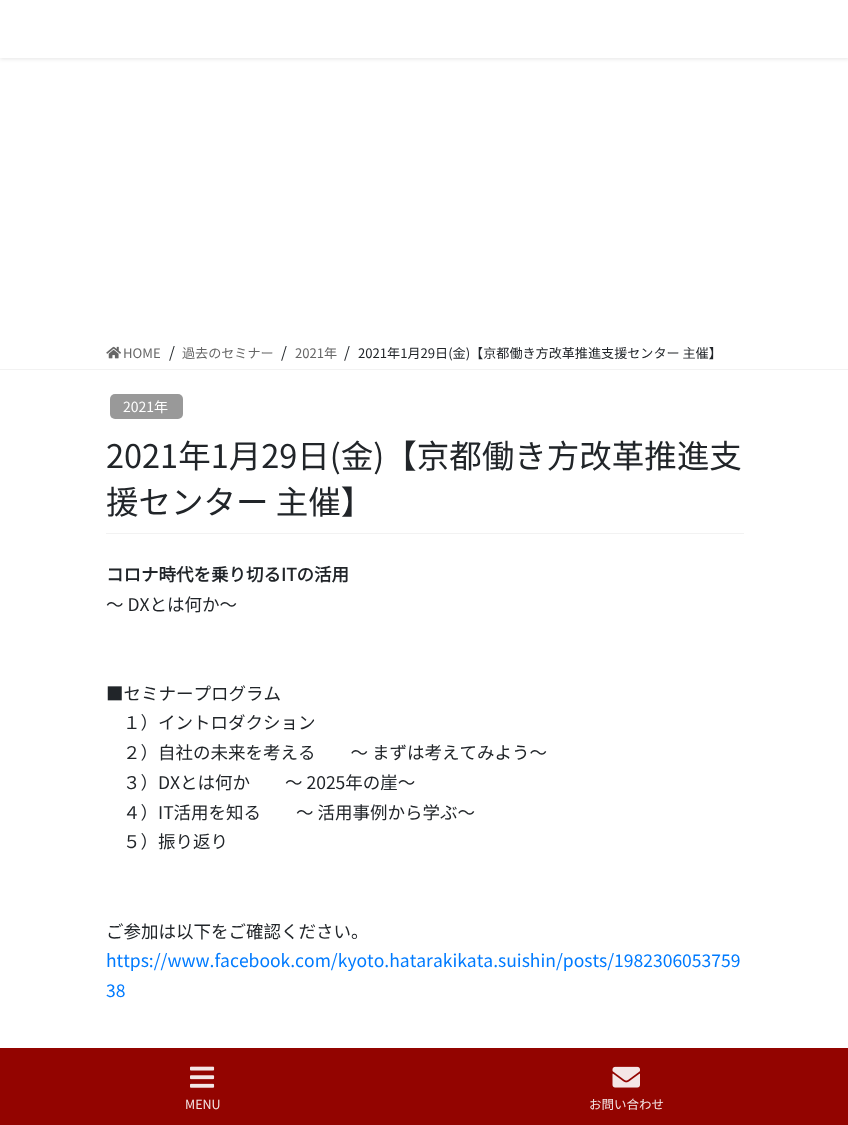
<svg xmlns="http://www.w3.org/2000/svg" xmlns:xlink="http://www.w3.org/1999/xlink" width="848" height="1125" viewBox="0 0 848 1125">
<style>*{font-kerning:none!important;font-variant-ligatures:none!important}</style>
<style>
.cls-1{font:100 13.1px Noto Sans SC;fill:#666666}
.cls-2{font:100 15px Noto Sans SC;fill:#212529}
.cls-3{font:100 13.1px Noto Sans SC;fill:#212529}
.cls-4{font:100 14px Noto Sans SC;fill:#ffffff}
.cls-5{font:100 32.5px Noto Sans SC;fill:#212529}
.cls-6{font:bold 17.5px Noto Sans SC;fill:#212529}
.cls-7{font:100 17.5px Noto Sans SC;fill:#212529}
.cls-8{font:100 17.5px Noto Sans SC;fill:#007bff}
.cls-9{font:100 12.5px Noto Sans SC;fill:#f4e6e6}
</style>
<rect width="100%" height="100%" fill="#ffffff"/>
<rect fill="#000000" fill-opacity="0.1" filter="blur(2px)" x="0" y="1" width="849" height="58"/>
<rect fill="#ffffff" x="0" y="0" width="848" height="58"/>
<rect fill="#f2f2f2" x="0" y="369" width="848" height="1"/>
<image xlink:href="image0.png" x="106" y="346" width="15" height="13"/>
<rect fill="#f2f2f2" x="106" y="533" width="638" height="1"/>
<rect fill="#999999" x="110" y="394" width="73" height="25" rx="5"/>
<rect fill="#930400" x="0" y="1048" width="848" height="77"/>
<image xlink:href="image1.png" x="190" y="1066" width="25" height="22"/>
<image xlink:href="image2.png" x="612" y="1066" width="28" height="22"/>
<text class="cls-1" x="123" y="358">HOME</text>
<text class="cls-2" x="169" y="358">/</text>
<text class="cls-1" x="182" y="358">過去のセミナー</text>
<text class="cls-2" x="281" y="358">/</text>
<text class="cls-1" x="295" y="358">2021年</text>
<text class="cls-2" x="344" y="358">/</text>
<text class="cls-3" x="358" y="358">2021年1月29日(金)【京都働き方改革推進支援センター 主催】</text>
<text class="cls-4" x="123" y="412">2021年</text>
<text class="cls-5"><tspan x="106" y="468">2021年1月29日(金)【京都働き方改革推進支</tspan><tspan x="106" y="514">援センター 主催】</tspan></text>
<text class="cls-6" x="106" y="581">コロナ時代を乗り切るITの活用</text>
<text class="cls-7" x="106" y="611">～ DXとは何か～</text>
<text class="cls-7" x="106" y="700">■セミナープログラム</text>
<text class="cls-7"><tspan x="123" y="729">１）イントロダクション</tspan><tspan x="123" y="759">２）自社の未来を考える　　～ まずは考えてみよう～</tspan><tspan x="123" y="789">３）DXとは何か　　～ 2025年の崖～</tspan><tspan x="123" y="819">４）IT活用を知る　　～ 活用事例から学ぶ～</tspan><tspan x="123" y="848">５）振り返り</tspan></text>
<text class="cls-7" x="106" y="938">ご参加は以下をご確認ください。</text>
<text class="cls-8"><tspan x="106" y="967">https://www.facebook.com/kyoto.hatarakikata.suishin/posts/1982306053759</tspan><tspan x="106" y="997">38</tspan></text>
<text class="cls-9" x="185" y="1109">MENU</text>
<text class="cls-9" x="589" y="1109">お問い合わせ</text>
</svg>
